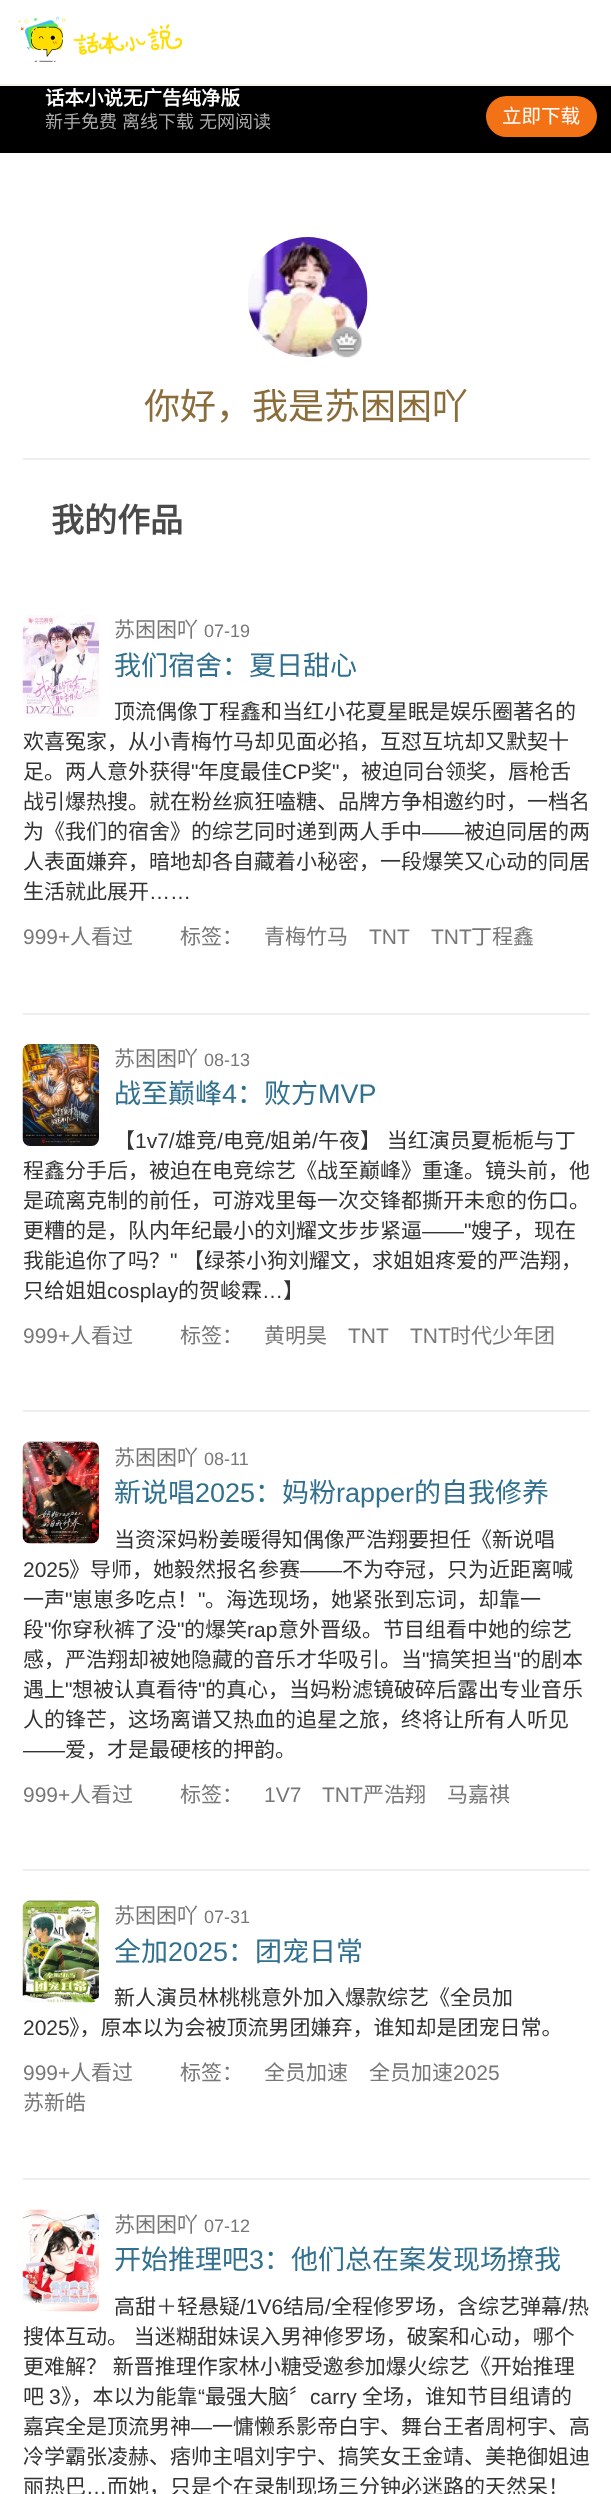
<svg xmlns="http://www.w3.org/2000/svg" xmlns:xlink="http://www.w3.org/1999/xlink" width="611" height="2494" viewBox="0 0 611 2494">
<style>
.cls-1{font:bold 19.5px Noto Sans CJK SC;fill:#ffffff}
.cls-2{font:18px Noto Sans CJK SC;fill:#aaaaaa}
.cls-3{font:19.5px Noto Sans CJK SC;fill:#ffffff}
.cls-4{font:36px Noto Sans CJK SC;fill:#8a6d3b}
.cls-5{font:bold 33px Noto Sans CJK SC;fill:#4a4a4a}
.cls-6{font:21px Noto Sans CJK SC;fill:#777777}
.cls-7{font:18px Liberation Sans;fill:#777777}
.cls-8{font:27px Noto Sans CJK SC;fill:#31708f}
.cls-9{font:21px Noto Sans CJK SC;fill:#333333}
.cls-10{font:21px Liberation Sans;fill:#333333}
.cls-11{font:21px Liberation Sans;fill:#777777}
.cls-12{font:27px Liberation Sans;fill:#31708f}
</style>
<rect width="100%" height="100%" fill="#ffffff"/>
<rect fill="#f5f5ee" x="0" y="84" width="611" height="2"/>
<image xlink:href="image0.png" x="18" y="16" width="165" height="46"/>
<rect fill="#000000" x="0" y="86" width="611" height="67"/>
<rect fill="#f47216" x="486" y="96" width="111" height="41" rx="20.5"/>
<image xlink:href="image1.png" x="248" y="237" width="120" height="120"/>
<image xlink:href="image2.png" x="331" y="326" width="31" height="32"/>
<rect fill="#eeeeee" x="23" y="458" width="567" height="2"/>
<rect fill="#eeeeee" x="23" y="1013" width="567" height="2"/>
<image xlink:href="image3.png" x="22" y="615" width="77" height="102"/>
<rect fill="#eeeeee" x="23" y="1410" width="567" height="2"/>
<image xlink:href="image4.png" x="22" y="1044" width="77" height="102"/>
<rect fill="#eeeeee" x="23" y="1869" width="567" height="2"/>
<image xlink:href="image5.png" x="22" y="1441" width="77" height="103"/>
<rect fill="#eeeeee" x="23" y="2178" width="567" height="2"/>
<image xlink:href="image6.png" x="22" y="1900" width="77" height="103"/>
<image xlink:href="image7.png" x="22" y="2209" width="77" height="103"/>
<text class="cls-1" x="45" y="105">话本小说无广告纯净版</text>
<text class="cls-2" x="45" y="128" word-spacing="1">新手免费 离线下载 无网阅读</text>
<text class="cls-3" x="502" y="123">立即下载</text>
<text class="cls-4" x="144" y="419">你好，我是苏困困吖</text>
<text class="cls-5" x="51" y="532">我的作品</text>
<text class="cls-6" x="114" y="637">苏困困吖</text>
<text class="cls-7" x="204" y="637">07-19</text>
<text class="cls-8" x="114" y="675">我们宿舍：夏日甜心</text>
<text class="cls-9" x="114" y="719">顶流偶像丁程鑫和当红小花夏星眠是娱乐圈著名的</text>
<text class="cls-9"><tspan x="23" y="749">欢喜冤家，从小青梅竹马却见面必掐，互怼互坑却又默契十</tspan><tspan x="23" y="779">足。两人意外获得</tspan></text>
<text class="cls-10" x="191" y="779">"</text>
<text class="cls-9" x="198" y="779">年度最佳</text>
<text class="cls-10" x="282" y="779">CP</text>
<text class="cls-9" x="311" y="779">奖</text>
<text class="cls-10" x="332" y="779">"</text>
<text class="cls-9" x="340" y="779">，被迫同台领奖，唇枪舌</text>
<text class="cls-9"><tspan x="23" y="809">战引爆热搜。就在粉丝疯狂嗑糖、品牌方争相邀约时，一档名</tspan><tspan x="23" y="839">为《我们的宿舍》的综艺同时递到两人手中</tspan></text>
<text class="cls-10" x="422" y="839">——</text>
<text class="cls-9" x="464" y="839">被迫同居的两</text>
<text class="cls-9"><tspan x="23" y="869">人表面嫌弃，暗地却各自藏着小秘密，一段爆笑又心动的同居</tspan><tspan x="23" y="899">生活就此展开</tspan></text>
<text class="cls-10" x="149" y="899">……</text>
<text class="cls-11" x="23" y="944">999+</text>
<text class="cls-6" x="70" y="944">人看过</text>
<text class="cls-6" x="180" y="944">标签：</text>
<text class="cls-6" x="264" y="944">青梅竹马</text>
<text class="cls-11" x="369" y="944">TNT</text>
<text class="cls-11" x="431" y="944">TNT</text>
<text class="cls-6" x="471" y="944">丁程鑫</text>
<text class="cls-6" x="114" y="1066">苏困困吖</text>
<text class="cls-7" x="204" y="1066">08-13</text>
<text class="cls-8" x="114" y="1103">战至巅峰</text>
<text class="cls-12" x="222" y="1103">4</text>
<text class="cls-8" x="237" y="1103">：败方</text>
<text class="cls-12" x="318" y="1103">MVP</text>
<text class="cls-9" x="114" y="1148">【</text>
<text class="cls-10" x="135" y="1148">1v7/</text>
<text class="cls-9" x="175" y="1148">雄竞</text>
<text class="cls-10" x="217" y="1148">/</text>
<text class="cls-9" x="223" y="1148">电竞</text>
<text class="cls-10" x="265" y="1148">/</text>
<text class="cls-9" x="270" y="1148">姐弟</text>
<text class="cls-10" x="312" y="1148">/</text>
<text class="cls-9" x="318" y="1148" word-spacing="1">午夜】 当红演员夏栀栀与丁</text>
<text class="cls-9"><tspan x="23" y="1178">程鑫分手后，被迫在电竞综艺《战至巅峰》重逢。镜头前，他</tspan><tspan x="23" y="1208">是疏离克制的前任，可游戏里每一次交锋都撕开未愈的伤口。</tspan><tspan x="23" y="1238">更糟的是，队内年纪最小的刘耀文步步紧逼</tspan></text>
<text class="cls-10" x="422" y="1238">——"</text>
<text class="cls-9" x="471" y="1238">嫂子，现在</text>
<text class="cls-9" x="23" y="1268">我能追你了吗？</text>
<text class="cls-10" x="170" y="1268">"</text>
<text class="cls-9" x="183" y="1268">【绿茶小狗刘耀文，求姐姐疼爱的严浩翔，</text>
<text class="cls-9" x="23" y="1298">只给姐姐</text>
<text class="cls-10" x="107" y="1298">cosplay</text>
<text class="cls-9" x="178" y="1298">的贺峻霖</text>
<text class="cls-10" x="262" y="1298">…</text>
<text class="cls-9" x="283" y="1298">】</text>
<text class="cls-11" x="23" y="1343">999+</text>
<text class="cls-6" x="70" y="1343">人看过</text>
<text class="cls-6" x="180" y="1343">标签：</text>
<text class="cls-6" x="264" y="1343">黄明昊</text>
<text class="cls-11" x="348" y="1343">TNT</text>
<text class="cls-11" x="410" y="1343">TNT</text>
<text class="cls-6" x="450" y="1343">时代少年团</text>
<text class="cls-6" x="114" y="1465">苏困困吖</text>
<text class="cls-7" x="204" y="1465">08-11</text>
<text class="cls-8" x="114" y="1502">新说唱</text>
<text class="cls-12" x="195" y="1502">2025</text>
<text class="cls-8" x="255" y="1502">：妈粉</text>
<text class="cls-12" x="336" y="1502">rapper</text>
<text class="cls-8" x="414" y="1502">的自我修养</text>
<text class="cls-9" x="114" y="1547">当资深妈粉姜暖得知偶像严浩翔要担任《新说唱</text>
<text class="cls-10" x="23" y="1577">2025</text>
<text class="cls-9" x="69" y="1577">》导师，她毅然报名参赛</text>
<text class="cls-10" x="300" y="1577">——</text>
<text class="cls-9" x="342" y="1577">不为夺冠，只为近距离喊</text>
<text class="cls-9" x="23" y="1607">一声</text>
<text class="cls-10" x="65" y="1607">"</text>
<text class="cls-9" x="72" y="1607">崽崽多吃点！</text>
<text class="cls-10" x="198" y="1607">"</text>
<text class="cls-9" x="205" y="1607">。海选现场，她紧张到忘词，却靠一</text>
<text class="cls-9" x="23" y="1637">段</text>
<text class="cls-10" x="44" y="1637">"</text>
<text class="cls-9" x="51" y="1637">你穿秋裤了没</text>
<text class="cls-10" x="177" y="1637">"</text>
<text class="cls-9" x="184" y="1637">的爆笑</text>
<text class="cls-10" x="247" y="1637">rap</text>
<text class="cls-9" x="278" y="1637">意外晋级。节目组看中她的综艺</text>
<text class="cls-9" x="23" y="1667">感，严浩翔却被她隐藏的音乐才华吸引。当</text>
<text class="cls-10" x="422" y="1667">"</text>
<text class="cls-9" x="429" y="1667">搞笑担当</text>
<text class="cls-10" x="513" y="1667">"</text>
<text class="cls-9" x="520" y="1667">的剧本</text>
<text class="cls-9" x="23" y="1697">遇上</text>
<text class="cls-10" x="65" y="1697">"</text>
<text class="cls-9" x="72" y="1697">想被认真看待</text>
<text class="cls-10" x="198" y="1697">"</text>
<text class="cls-9" x="205" y="1697">的真心，当妈粉滤镜破碎后露出专业音乐</text>
<text class="cls-9" x="23" y="1727">人的锋芒，这场离谱又热血的追星之旅，终将让所有人听见</text>
<text class="cls-10" x="23" y="1757">——</text>
<text class="cls-9" x="65" y="1757">爱，才是最硬核的押韵。</text>
<text class="cls-11" x="23" y="1802">999+</text>
<text class="cls-6" x="70" y="1802">人看过</text>
<text class="cls-6" x="180" y="1802">标签：</text>
<text class="cls-11" x="264" y="1802">1V7</text>
<text class="cls-11" x="322" y="1802">TNT</text>
<text class="cls-6" x="363" y="1802">严浩翔</text>
<text class="cls-6" x="447" y="1802">马嘉祺</text>
<text class="cls-6" x="114" y="1923">苏困困吖</text>
<text class="cls-7" x="204" y="1923">07-31</text>
<text class="cls-8" x="114" y="1961">全加</text>
<text class="cls-12" x="168" y="1961">2025</text>
<text class="cls-8" x="228" y="1961">：团宠日常</text>
<text class="cls-9" x="114" y="2005">新人演员林桃桃意外加入爆款综艺《全员加</text>
<text class="cls-10" x="23" y="2035">2025</text>
<text class="cls-9" x="69" y="2035">》，原本以为会被顶流男团嫌弃，谁知却是团宠日常。</text>
<text class="cls-11" x="23" y="2080">999+</text>
<text class="cls-6" x="70" y="2080">人看过</text>
<text class="cls-6" x="180" y="2080">标签：</text>
<text class="cls-6" x="264" y="2080">全员加速</text>
<text class="cls-6" x="369" y="2080">全员加速</text>
<text class="cls-11" x="453" y="2080">2025</text>
<text class="cls-6" x="23" y="2110">苏新皓</text>
<text class="cls-6" x="114" y="2232">苏困困吖</text>
<text class="cls-7" x="204" y="2232">07-12</text>
<text class="cls-8" x="114" y="2269">开始推理吧</text>
<text class="cls-12" x="249" y="2269">3</text>
<text class="cls-8" x="264" y="2269">：他们总在案发现场撩我</text>
<text class="cls-9" x="114" y="2314">高甜＋轻悬疑</text>
<text class="cls-10" x="240" y="2314">/1V6</text>
<text class="cls-9" x="283" y="2314">结局</text>
<text class="cls-10" x="325" y="2314">/</text>
<text class="cls-9" x="331" y="2314">全程修罗场，含综艺弹幕</text>
<text class="cls-10" x="562" y="2314">/</text>
<text class="cls-9" x="568" y="2314">热</text>
<text class="cls-9"><tspan x="23" y="2344" word-spacing="1">搜体互动。 当迷糊甜妹误入男神修罗场，破案和心动，哪个</tspan><tspan x="23" y="2374" word-spacing="1">更难解？ 新晋推理作家林小糖受邀参加爆火综艺《开始推理</tspan><tspan x="23" y="2404">吧</tspan></text>
<text class="cls-10" x="49" y="2404">3</text>
<text class="cls-9" x="61" y="2404">》，本以为能靠</text>
<text class="cls-10" x="198" y="2404">“</text>
<text class="cls-9" x="205" y="2404">最强大脑〞</text>
<text class="cls-10" x="310" y="2404">carry</text>
<text class="cls-9" x="362" y="2404">全场，谁知节目组请的</text>
<text class="cls-9" x="23" y="2434">嘉宾全是顶流男神</text>
<text class="cls-10" x="191" y="2434">—</text>
<text class="cls-9" x="212" y="2434">一慵懒系影帝白宇、舞台王者周柯宇、高</text>
<text class="cls-9"><tspan x="23" y="2464">冷学霸张凌赫、痞帅主唱刘宇宁、搞笑女王金靖、美艳御姐迪</tspan><tspan x="23" y="2494">丽热巴</tspan></text>
<text class="cls-10" x="86" y="2494">…</text>
<text class="cls-9" x="107" y="2494">而她，只是个在录制现场三分钟必迷路的天然呆！</text>
</svg>
